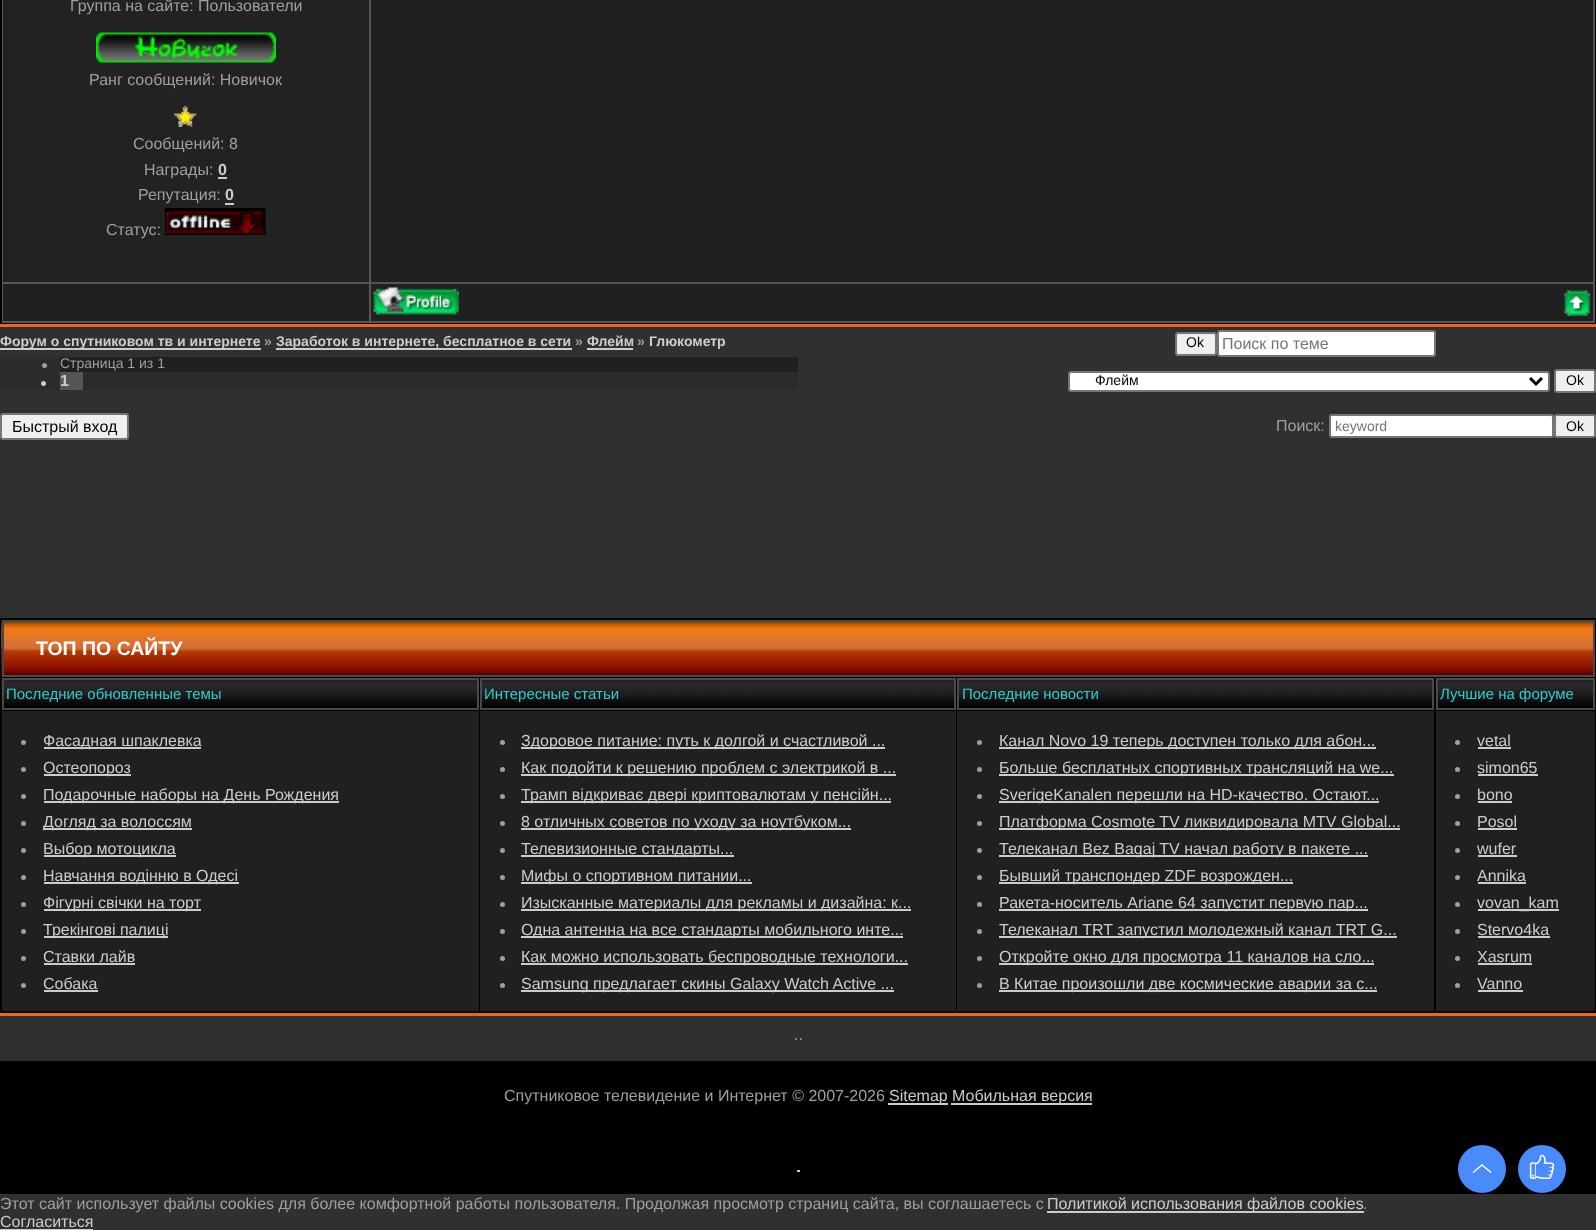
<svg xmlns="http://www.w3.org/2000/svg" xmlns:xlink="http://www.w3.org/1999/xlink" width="1596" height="1230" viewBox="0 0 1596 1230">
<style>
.cls-1{font:16px Liberation Sans;fill:#9f9f9f}
.cls-2{font:bold 16px Liberation Sans;fill:#cccccc}
.cls-3{font:bold 14px Liberation Sans;fill:#cccccc}
.cls-4{font:bold 14px Liberation Sans;fill:#9f9f9f}
.cls-5{font:14px Liberation Sans;fill:#000000}
.cls-6{font:16px Liberation Sans;fill:#757575}
.cls-7{font:14px Liberation Sans;fill:#9f9f9f}
.cls-8{font:16px Liberation Sans;fill:#000000}
.cls-9{font:14px Liberation Sans;fill:#757575}
.cls-10{font:bold 19.5px Liberation Sans;fill:#ffffff}
.cls-11{font:15px Liberation Sans;fill:#33cccc}
.cls-12{font:16px Liberation Sans;fill:#cccccc}
</style>
<rect width="100%" height="100%" fill="#303030"/>
<rect fill="#000000" x="0" y="0" width="1596" height="324"/>
<rect fill="#f06320" x="0" y="324" width="1596" height="3"/>
<rect fill="#555555" x="2" y="0" width="1593" height="323"/>
<rect fill="#222222" x="3" y="0" width="366" height="282"/>
<image xlink:href="image0.png" x="96" y="32" width="180" height="31"/>
<image xlink:href="image1.png" x="173" y="106" width="24" height="21"/>
<rect fill="#cccccc" x="218" y="177" width="9" height="2"/>
<rect fill="#cccccc" x="225" y="203" width="9" height="2"/>
<image xlink:href="image2.png" x="165" y="208" width="101" height="27"/>
<rect fill="#202020" x="371" y="0" width="1222" height="282"/>
<rect fill="#202020" x="3" y="284" width="366" height="37"/>
<rect fill="#202020" x="371" y="284" width="1222" height="37"/>
<image xlink:href="image3.png" x="373" y="287" width="86" height="28"/>
<image xlink:href="image4.png" x="1564" y="290" width="26" height="26"/>
<rect fill="#cccccc" x="0" y="348" width="261" height="2"/>
<rect fill="#cccccc" x="276" y="348" width="296" height="2"/>
<rect fill="#cccccc" x="587" y="348" width="46" height="2"/>
<rect fill="#efefef" stroke="#767676" stroke-width="2" x="1176" y="333" width="40" height="22" rx="2"/>
<rect fill="#ffffff" stroke="#767676" stroke-width="2" x="1218" y="331" width="217" height="25" rx="2"/>
<rect fill="#2b2b2b" x="0" y="357" width="798" height="33"/>
<rect fill="#202020" x="60" y="357" width="738" height="15"/>
<circle fill="#9f9f9f" cx="44.5" cy="365.5" r="2.5"/>
<rect fill="#555555" x="60" y="372" width="23" height="18"/>
<circle fill="#cccccc" cx="43.5" cy="383.5" r="2.5"/>
<rect fill="#ffffff" stroke="#767676" stroke-width="2" x="1069" y="372" width="480" height="19" rx="2"/>
<path fill="none" stroke="#000000" stroke-width="3" d="M1530 378L1536 384L1542 378"/>
<rect fill="#efefef" stroke="#767676" stroke-width="2" x="1555" y="370" width="40" height="22" rx="2"/>
<rect fill="#efefef" stroke="#767676" stroke-width="2" x="1" y="414" width="127" height="25" rx="2"/>
<rect fill="#ffffff" stroke="#767676" stroke-width="2" x="1330" y="415" width="223" height="22" rx="2"/>
<rect fill="#efefef" stroke="#767676" stroke-width="2" x="1555" y="415" width="40" height="22" rx="2"/>
<rect fill="#000000" x="0" y="618" width="1596" height="395"/>
<rect fill="#f06320" x="0" y="1013" width="1596" height="3"/>
<image xlink:href="image5.png" x="1" y="620" width="1592" height="56"/>
<rect fill="none" stroke="#494949" stroke-width="2" x="3" y="621" width="1591" height="55"/>
<image xlink:href="image6.png" x="1" y="678" width="476" height="28"/>
<rect fill="none" stroke="#494949" stroke-width="2" x="3" y="679" width="475" height="30"/>
<image xlink:href="image7.png" x="482" y="680" width="472" height="26"/>
<rect fill="none" stroke="#494949" stroke-width="2" x="481" y="679" width="474" height="30"/>
<image xlink:href="image8.png" x="959" y="680" width="473" height="26"/>
<rect fill="none" stroke="#494949" stroke-width="2" x="958" y="679" width="475" height="30"/>
<image xlink:href="image9.png" x="1435" y="678" width="158" height="28"/>
<rect fill="none" stroke="#494949" stroke-width="2" x="1437" y="679" width="157" height="30"/>
<rect fill="#202020" x="2" y="711" width="477" height="300"/>
<circle fill="#9f9f9f" cx="23.5" cy="742.5" r="2.5"/>
<rect fill="#cccccc" x="44" y="747" width="157" height="2"/>
<circle fill="#9f9f9f" cx="23.5" cy="769.5" r="2.5"/>
<rect fill="#cccccc" x="44" y="774" width="87" height="2"/>
<circle fill="#9f9f9f" cx="23.5" cy="796.5" r="2.5"/>
<rect fill="#cccccc" x="44" y="801" width="295" height="2"/>
<circle fill="#9f9f9f" cx="23.5" cy="823.5" r="2.5"/>
<rect fill="#cccccc" x="44" y="828" width="148" height="2"/>
<circle fill="#9f9f9f" cx="23.5" cy="850.5" r="2.5"/>
<rect fill="#cccccc" x="44" y="855" width="132" height="2"/>
<circle fill="#9f9f9f" cx="23.5" cy="877.5" r="2.5"/>
<rect fill="#cccccc" x="44" y="882" width="195" height="2"/>
<circle fill="#9f9f9f" cx="23.5" cy="904.5" r="2.5"/>
<rect fill="#cccccc" x="44" y="909" width="157" height="2"/>
<circle fill="#9f9f9f" cx="23.5" cy="931.5" r="2.5"/>
<rect fill="#cccccc" x="44" y="936" width="124" height="2"/>
<circle fill="#9f9f9f" cx="23.5" cy="958.5" r="2.5"/>
<rect fill="#cccccc" x="44" y="963" width="91" height="2"/>
<circle fill="#9f9f9f" cx="23.5" cy="985.5" r="2.5"/>
<rect fill="#cccccc" x="44" y="990" width="54" height="2"/>
<rect fill="#202020" x="480" y="711" width="476" height="300"/>
<circle fill="#9f9f9f" cx="502.5" cy="742.5" r="2.5"/>
<rect fill="#cccccc" x="521" y="747" width="364" height="2"/>
<circle fill="#9f9f9f" cx="502.5" cy="769.5" r="2.5"/>
<rect fill="#cccccc" x="521" y="774" width="375" height="2"/>
<circle fill="#9f9f9f" cx="502.5" cy="796.5" r="2.5"/>
<rect fill="#cccccc" x="521" y="801" width="370" height="2"/>
<circle fill="#9f9f9f" cx="502.5" cy="823.5" r="2.5"/>
<rect fill="#cccccc" x="521" y="828" width="330" height="2"/>
<circle fill="#9f9f9f" cx="502.5" cy="850.5" r="2.5"/>
<rect fill="#cccccc" x="521" y="855" width="213" height="2"/>
<circle fill="#9f9f9f" cx="502.5" cy="877.5" r="2.5"/>
<rect fill="#cccccc" x="521" y="882" width="231" height="2"/>
<circle fill="#9f9f9f" cx="502.5" cy="904.5" r="2.5"/>
<rect fill="#cccccc" x="521" y="909" width="390" height="2"/>
<circle fill="#9f9f9f" cx="502.5" cy="931.5" r="2.5"/>
<rect fill="#cccccc" x="521" y="936" width="382" height="2"/>
<circle fill="#9f9f9f" cx="502.5" cy="958.5" r="2.5"/>
<rect fill="#cccccc" x="521" y="963" width="387" height="2"/>
<circle fill="#9f9f9f" cx="502.5" cy="985.5" r="2.5"/>
<rect fill="#cccccc" x="521" y="990" width="373" height="2"/>
<rect fill="#202020" x="957" y="711" width="477" height="300"/>
<circle fill="#9f9f9f" cx="979.5" cy="742.5" r="2.5"/>
<rect fill="#cccccc" x="999" y="747" width="377" height="2"/>
<circle fill="#9f9f9f" cx="979.5" cy="769.5" r="2.5"/>
<rect fill="#cccccc" x="999" y="774" width="395" height="2"/>
<circle fill="#9f9f9f" cx="979.5" cy="796.5" r="2.5"/>
<rect fill="#cccccc" x="999" y="801" width="380" height="2"/>
<circle fill="#9f9f9f" cx="979.5" cy="823.5" r="2.5"/>
<rect fill="#cccccc" x="999" y="828" width="401" height="2"/>
<circle fill="#9f9f9f" cx="979.5" cy="850.5" r="2.5"/>
<rect fill="#cccccc" x="999" y="855" width="369" height="2"/>
<circle fill="#9f9f9f" cx="979.5" cy="877.5" r="2.5"/>
<rect fill="#cccccc" x="999" y="882" width="294" height="2"/>
<circle fill="#9f9f9f" cx="979.5" cy="904.5" r="2.5"/>
<rect fill="#cccccc" x="999" y="909" width="369" height="2"/>
<circle fill="#9f9f9f" cx="979.5" cy="931.5" r="2.5"/>
<rect fill="#cccccc" x="999" y="936" width="398" height="2"/>
<circle fill="#9f9f9f" cx="979.5" cy="958.5" r="2.5"/>
<rect fill="#cccccc" x="999" y="963" width="375" height="2"/>
<circle fill="#9f9f9f" cx="979.5" cy="985.5" r="2.5"/>
<rect fill="#cccccc" x="999" y="990" width="378" height="2"/>
<rect fill="#202020" x="1436" y="711" width="159" height="300"/>
<circle fill="#9f9f9f" cx="1457.5" cy="742.5" r="2.5"/>
<rect fill="#cccccc" x="1478" y="747" width="33" height="2"/>
<circle fill="#9f9f9f" cx="1457.5" cy="769.5" r="2.5"/>
<rect fill="#cccccc" x="1478" y="774" width="60" height="2"/>
<circle fill="#9f9f9f" cx="1457.5" cy="796.5" r="2.5"/>
<rect fill="#cccccc" x="1478" y="801" width="34" height="2"/>
<circle fill="#9f9f9f" cx="1457.5" cy="823.5" r="2.5"/>
<rect fill="#cccccc" x="1478" y="828" width="39" height="2"/>
<circle fill="#9f9f9f" cx="1457.5" cy="850.5" r="2.5"/>
<rect fill="#cccccc" x="1478" y="855" width="39" height="2"/>
<circle fill="#9f9f9f" cx="1457.5" cy="877.5" r="2.5"/>
<rect fill="#cccccc" x="1478" y="882" width="48" height="2"/>
<circle fill="#9f9f9f" cx="1457.5" cy="904.5" r="2.5"/>
<rect fill="#cccccc" x="1478" y="909" width="81" height="2"/>
<circle fill="#9f9f9f" cx="1457.5" cy="931.5" r="2.5"/>
<rect fill="#cccccc" x="1478" y="936" width="72" height="2"/>
<circle fill="#9f9f9f" cx="1457.5" cy="958.5" r="2.5"/>
<rect fill="#cccccc" x="1478" y="963" width="54" height="2"/>
<circle fill="#9f9f9f" cx="1457.5" cy="985.5" r="2.5"/>
<rect fill="#cccccc" x="1478" y="990" width="45" height="2"/>
<rect fill="#000000" x="0" y="1061" width="1596" height="133"/>
<rect fill="#cccccc" x="888" y="1103" width="60" height="2"/>
<rect fill="#cccccc" x="951" y="1103" width="141" height="2"/>
<rect fill="#cccccc" x="797" y="1170" width="3" height="2"/>
<circle fill="#498bfa" cx="1482" cy="1169" r="24"/>
<path fill="#ffffff" d="M1490.5 1173L1482 1166L1473.5 1173L1472.5 1172L1482 1164L1491.5 1172Z"/>
<circle fill="#498bfa" cx="1542" cy="1169" r="24"/>
<image xlink:href="image10.png" x="1529" y="1154" width="26" height="25"/>
<rect fill="#cccccc" x="1047" y="1211" width="317" height="2"/>
<rect fill="#cccccc" x="0" y="1229" width="93" height="1"/>
<text class="cls-1" x="70" y="11">Группа на сайте: Пользователи</text>
<text class="cls-1" x="89" y="85">Ранг сообщений: Новичок</text>
<text class="cls-1" x="133" y="149">Сообщений: 8</text>
<text class="cls-1" x="144" y="175">Награды:</text>
<text class="cls-2" x="218" y="175">0</text>
<text class="cls-1" x="138" y="200">Репутация:</text>
<text class="cls-2" x="225" y="200">0</text>
<text class="cls-1" x="106" y="235">Статус:</text>
<text class="cls-3" x="0" y="346">Форум о спутниковом тв и интернете</text>
<text class="cls-4" x="264" y="346">»</text>
<text class="cls-3" x="276" y="346">Заработок в интернете, бесплатное в сети</text>
<text class="cls-4" x="575" y="346">»</text>
<text class="cls-3" x="587" y="346">Флейм</text>
<text class="cls-4" x="637" y="346">»</text>
<text class="cls-3" x="649" y="346">Глюкометр</text>
<text class="cls-5" x="1186" y="347">Ok</text>
<text class="cls-6" x="1222" y="349">Поиск по теме</text>
<text class="cls-7" x="60" y="368">Страница 1 из 1</text>
<text class="cls-2" x="60" y="386">1</text>
<text class="cls-5" x="1095" y="385">Флейм</text>
<text class="cls-5" x="1566" y="385">Ok</text>
<text class="cls-8" x="12" y="432">Быстрый вход</text>
<text class="cls-1" x="1276" y="431">Поиск:</text>
<text class="cls-9" x="1335" y="431">keyword</text>
<text class="cls-5" x="1566" y="431">Ok</text>
<text class="cls-10" x="36" y="655">ТОП ПО САЙТУ</text>
<text class="cls-11" x="6" y="699">Последние обновленные темы</text>
<text class="cls-11" x="484" y="699">Интересные статьи</text>
<text class="cls-11" x="962" y="699">Последние новости</text>
<text class="cls-11" x="1440" y="699">Лучшие на форуме</text>
<text class="cls-12"><tspan x="43" y="746">Фасадная шпаклевка</tspan><tspan x="43" y="773">Остеопороз</tspan><tspan x="43" y="800">Подарочные наборы на День Рождения</tspan><tspan x="43" y="827">Догляд за волоссям</tspan><tspan x="43" y="854">Выбор мотоцикла</tspan><tspan x="43" y="881">Навчання водінню в Одесі</tspan><tspan x="43" y="908">Фігурні свічки на торт</tspan><tspan x="43" y="935">Трекінгові палиці</tspan><tspan x="43" y="962">Cтавки лайв</tspan><tspan x="43" y="989">Собака</tspan></text>
<text class="cls-12"><tspan x="521" y="746">Здоровое питание: путь к долгой и счастливой ...</tspan><tspan x="521" y="773">Как подойти к решению проблем с электрикой в ...</tspan><tspan x="521" y="800">Трамп відкриває двері криптовалютам у пенсійн...</tspan><tspan x="521" y="827">8 отличных советов по уходу за ноутбуком...</tspan><tspan x="521" y="854">Телевизионные стандарты...</tspan><tspan x="521" y="881">Мифы о спортивном питании...</tspan><tspan x="521" y="908">Изысканные материалы для рекламы и дизайна: к...</tspan><tspan x="521" y="935">Одна антенна на все стандарты мобильного инте...</tspan><tspan x="521" y="962">Как можно использовать беспроводные технологи...</tspan><tspan x="521" y="989">Samsung предлагает скины Galaxy Watch Active ...</tspan></text>
<text class="cls-12"><tspan x="999" y="746">Канал Novo 19 теперь доступен только для абон...</tspan><tspan x="999" y="773">Больше бесплатных спортивных трансляций на we...</tspan><tspan x="999" y="800">SverigeKanalen перешли на HD-качество. Остают...</tspan><tspan x="999" y="827">Платформа Cosmote TV ликвидировала MTV Global...</tspan><tspan x="999" y="854">Телеканал Bez Bagaj TV начал работу в пакете ...</tspan><tspan x="999" y="881">Бывший транспондер ZDF возрожден...</tspan><tspan x="999" y="908">Ракета-носитель Ariane 64 запустит первую пар...</tspan><tspan x="999" y="935">Телеканал TRT запустил молодежный канал TRT G...</tspan><tspan x="999" y="962">Откройте окно для просмотра 11 каналов на сло...</tspan><tspan x="999" y="989">В Китае произошли две космические аварии за с...</tspan></text>
<text class="cls-12"><tspan x="1477" y="746">vetal</tspan><tspan x="1477" y="773">simon65</tspan><tspan x="1477" y="800">bono</tspan><tspan x="1477" y="827">Posol</tspan><tspan x="1477" y="854">wufer</tspan><tspan x="1477" y="881">Annika</tspan><tspan x="1477" y="908">vovan_kam</tspan><tspan x="1477" y="935">Stervo4ka</tspan><tspan x="1477" y="962">Xasrum</tspan><tspan x="1477" y="989">Vanno</tspan></text>
<text class="cls-1" x="794" y="1040">..</text>
<text class="cls-1" x="504" y="1101">Спутниковое телевидение и Интернет © 2007-2026</text>
<text class="cls-12" x="889" y="1101">Sitemap</text>
<text class="cls-12" x="952" y="1101">Мобильная версия</text>
<text class="cls-1" x="0" y="1209">Этот сайт использует файлы cookies для более комфортной работы пользователя. Продолжая просмотр страниц сайта, вы соглашаетесь с</text>
<text class="cls-12" x="1047" y="1209">Политикой использования файлов cookies</text>
<text class="cls-1" x="1363" y="1209">.</text>
<text class="cls-12" x="0" y="1227">Согласиться</text>
</svg>
